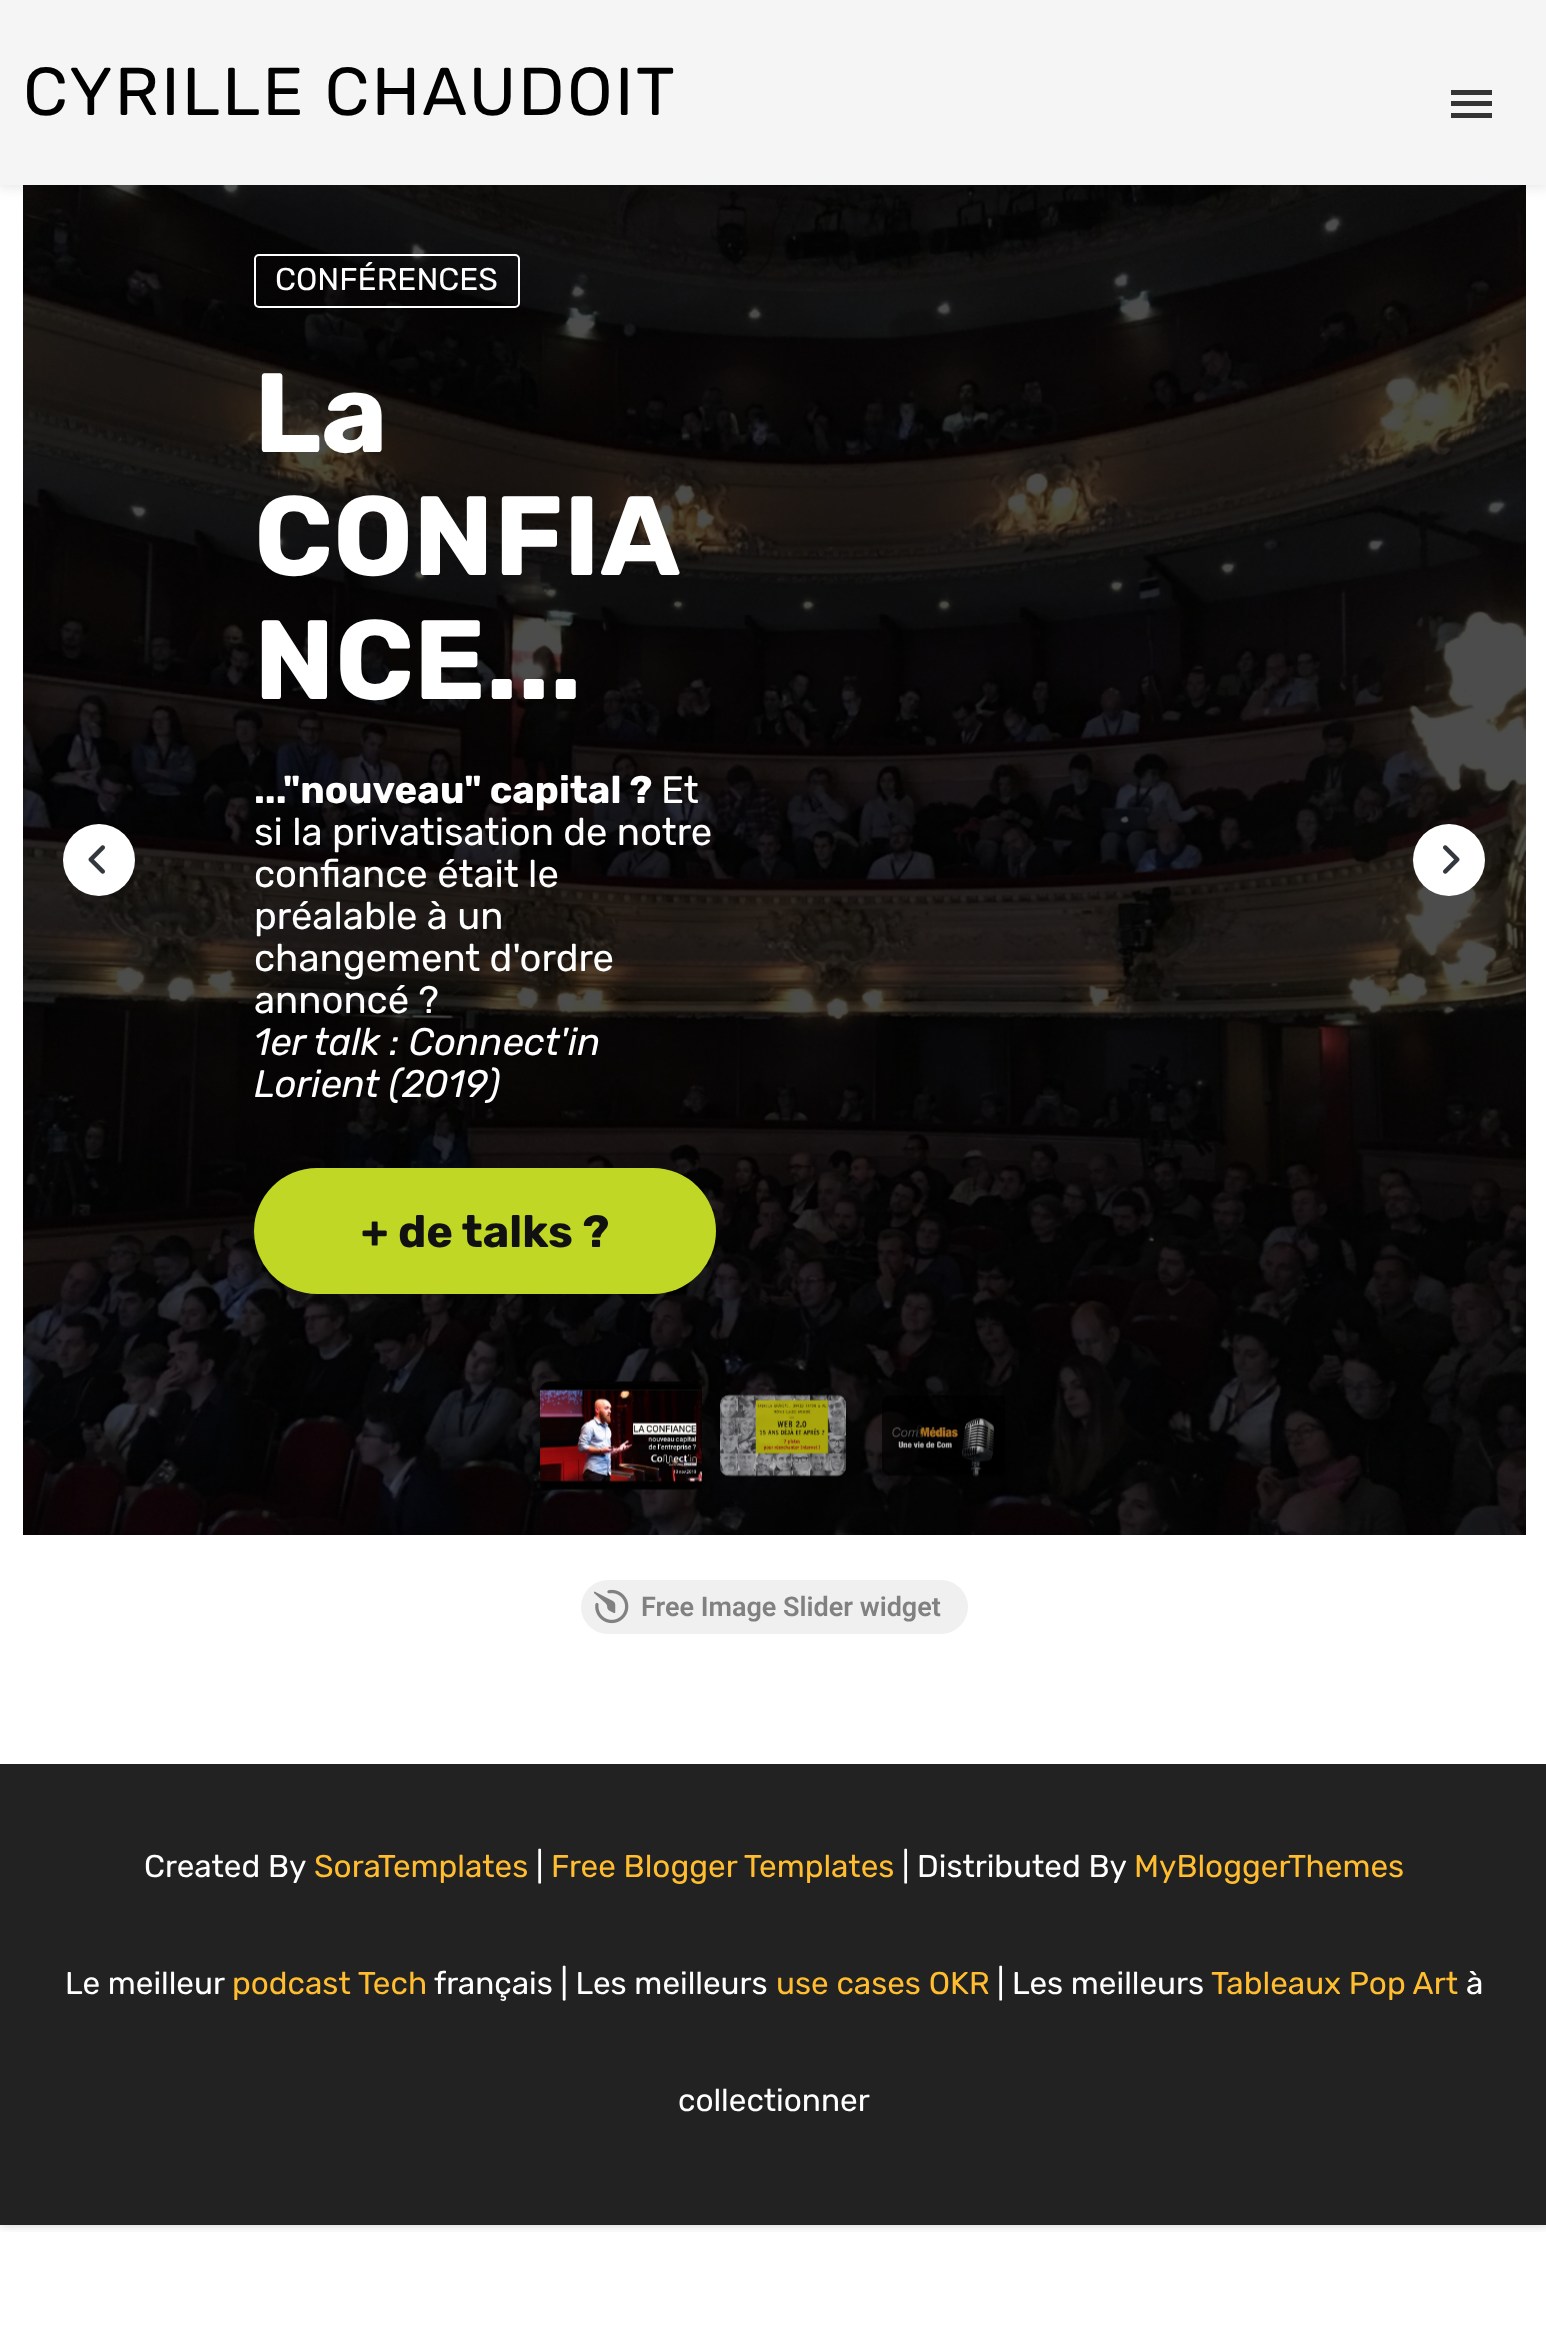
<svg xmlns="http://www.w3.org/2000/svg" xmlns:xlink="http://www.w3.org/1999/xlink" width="1546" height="2350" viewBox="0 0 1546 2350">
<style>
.cls-1{font:67.5px Rubik;letter-spacing:2.25px;fill:#000000}
.cls-2{font:31.5px Rubik;fill:#ffffff}
.cls-3{font:bold 112.5px Rubik;fill:#ffffff}
.cls-4{font:bold 38.25px Rubik;fill:#ffffff}
.cls-5{font:38.25px Rubik;fill:#ffffff}
.cls-6{font:italic 38.25px Rubik;fill:#ffffff}
.cls-7{font:bold 45px Rubik;fill:#111111}
.cls-8{font:600 27px Roboto;fill:#818181}
.cls-9{font:31.5px Rubik;fill:#ffbd2f}
</style>
<defs>
<clipPath id="clip1"><rect x="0" y="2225" width="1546" height="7"/></clipPath>
</defs>
<rect width="100%" height="100%" fill="#ffffff"/>
<g clip-path="url(#clip1)">
<rect fill="#000000" fill-opacity="0.2" filter="blur(5.5px)" x="0" y="0" width="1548" height="2225"/>
</g>
<rect fill="#000000" fill-opacity="0.1" filter="blur(7px)" x="-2" y="-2" width="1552" height="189"/>
<rect fill="#f5f5f5" x="0" y="0" width="1546" height="185"/>
<rect fill="#343434" x="1451" y="90" width="41" height="5"/>
<rect fill="#343434" x="1451" y="101" width="41" height="5"/>
<rect fill="#343434" x="1451" y="113" width="41" height="5"/>
<image xlink:href="image0.png" x="23" y="185" width="1503" height="1350"/>
<rect fill="none" stroke="#ffffff" stroke-width="2" x="255" y="255" width="264" height="52" rx="4"/>
<rect fill="#c0d725" x="254" y="1168" width="462" height="126" rx="63"/>
<circle fill="#ffffff" cx="99" cy="860" r="36"/>
<image xlink:href="image1.png" x="88" y="845" width="17" height="29"/>
<circle fill="#ffffff" cx="1449" cy="860" r="36"/>
<image xlink:href="image2.png" x="1443" y="845" width="17" height="29"/>
<image xlink:href="image3.png" x="540" y="1381" width="162" height="109"/>
<rect fill="none" stroke="#111111" stroke-opacity="0.1" stroke-width="2" x="541" y="1383" width="160" height="106" rx="8"/>
<image xlink:href="image4.png" x="720" y="1394" width="126" height="83"/>
<rect fill="none" stroke="#111111" stroke-opacity="0.07" stroke-width="2" x="721" y="1396" width="124" height="79" rx="8"/>
<image xlink:href="image5.png" x="882" y="1395" width="123" height="82"/>
<rect fill="none" stroke="#111111" stroke-opacity="0.07" stroke-width="2" x="883" y="1396" width="124" height="79" rx="8"/>
<rect fill="#f0f0f0" x="581" y="1580" width="387" height="54" rx="27"/>
<image xlink:href="image6.png" x="594" y="1589" width="35" height="35"/>
<rect fill="#222222" x="0" y="1764" width="1546" height="461"/>
<text class="cls-1" x="23" y="115">CYRILLE CHAUDOIT</text>
<text class="cls-2" x="275" y="290">CONFÉRENCES</text>
<text class="cls-3"><tspan x="254" y="452">La</tspan><tspan x="254" y="575">CONFIA</tspan><tspan x="254" y="699">NCE...</tspan></text>
<text class="cls-4" x="254" y="803">..."nouveau" capital ?</text>
<text class="cls-5" x="661" y="803">Et</text>
<text class="cls-5"><tspan x="254" y="845">si la privatisation de notre</tspan><tspan x="254" y="887">confiance était le</tspan><tspan x="254" y="929">préalable à un</tspan><tspan x="254" y="971">changement d'ordre</tspan><tspan x="254" y="1013">annoncé ?</tspan></text>
<text class="cls-6"><tspan x="254" y="1055">1er talk : Connect'in</tspan><tspan x="254" y="1097">Lorient (2019)</tspan></text>
<text class="cls-7" x="361" y="1247">+ de talks ?</text>
<text class="cls-8" x="641" y="1616">Free Image Slider widget</text>
<text class="cls-2" x="144" y="1877">Created By</text>
<text class="cls-9" x="314" y="1877">SoraTemplates</text>
<text class="cls-2" x="536" y="1877">|</text>
<text class="cls-9" x="551" y="1877">Free Blogger Templates</text>
<text class="cls-2" x="902" y="1877">| Distributed By</text>
<text class="cls-9" x="1134" y="1877">MyBloggerThemes</text>
<text class="cls-2" x="65" y="1994">Le meilleur</text>
<text class="cls-9" x="232" y="1994">podcast Tech</text>
<text class="cls-2" x="434" y="1994">français | Les meilleurs</text>
<text class="cls-9" x="776" y="1994">use cases OKR</text>
<text class="cls-2" x="997" y="1994">| Les meilleurs</text>
<text class="cls-9" x="1211" y="1994">Tableaux Pop Art</text>
<text class="cls-2" x="1466" y="1994">à</text>
<text class="cls-2" x="678" y="2111">collectionner</text>
</svg>
